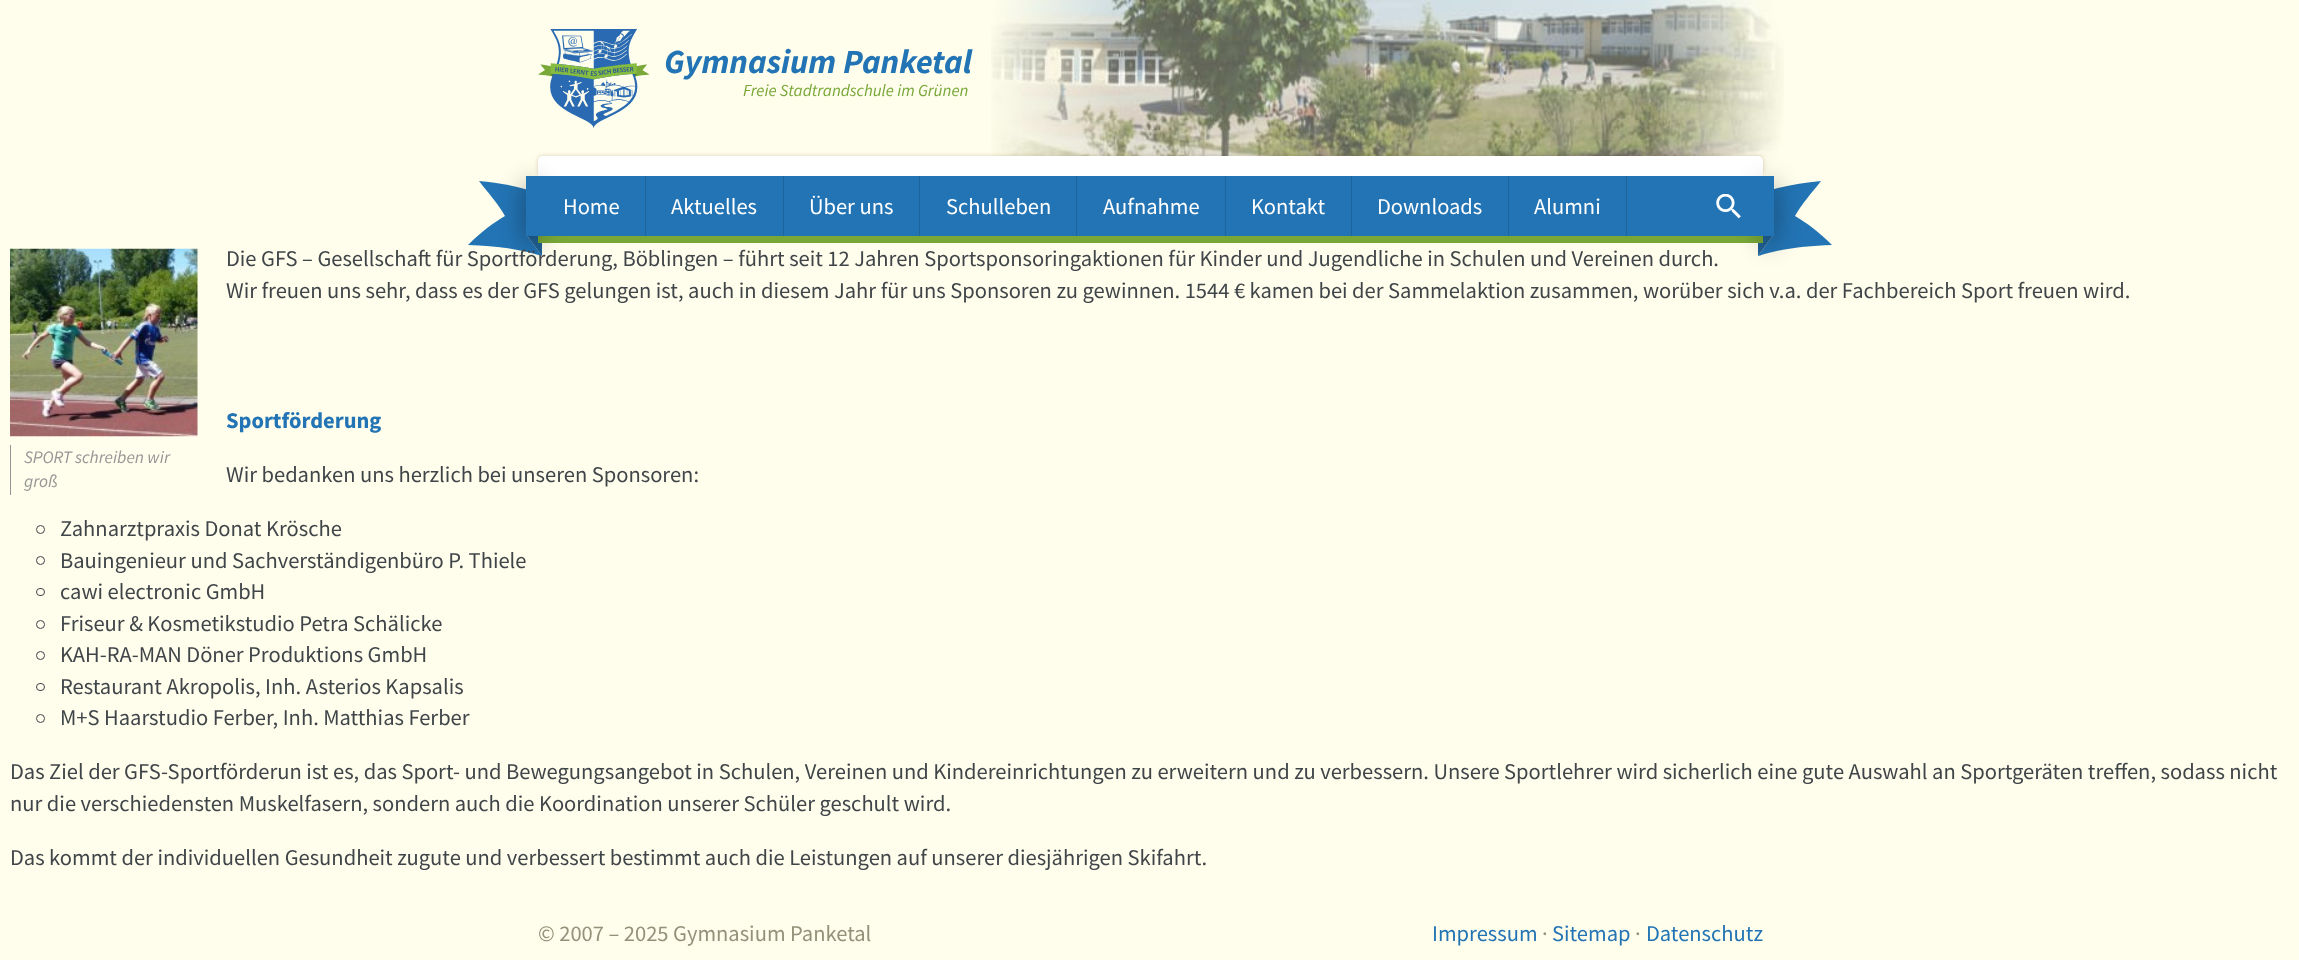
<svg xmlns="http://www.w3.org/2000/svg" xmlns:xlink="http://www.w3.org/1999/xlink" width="2299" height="960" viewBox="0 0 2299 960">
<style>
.cls-1{font:italic bold 33.75px Source Sans Pro;fill:#2374b4}
.cls-2{font:italic 16.9px Source Sans Pro;fill:#78a737}
.cls-3{font:22.5px Source Sans Pro;fill:#ffffff}
.cls-4{font:22.5px Source Sans Pro;fill:#404549}
.cls-5{font:bold 22.5px Source Sans Pro;fill:#2374b4}
.cls-6{font:italic 17.5px Source Sans Pro;fill:#969696}
.cls-7{font:22.5px Source Sans Pro;fill:#939179}
.cls-8{font:22.5px Source Sans Pro;fill:#2374b4}
</style>
<rect width="100%" height="100%" fill="#fffeec"/>
<image xlink:href="image0.png" x="991" y="0" width="793" height="173"/>
<image xlink:href="image1.png" x="538" y="29" width="112" height="99"/>
<path fill="#2374b4" d="M526 234L542 256C516 248 495 246 468 245C481 232 493 223 505 216C497 202 489 194 479 181C501 183 524 187 542 195Z"/>
<path fill="#2374b4" d="M1758 195C1776 187 1799 183 1821 181C1811 194 1803 202 1795 216C1807 223 1819 232 1832 245C1805 246 1784 248 1758 256L1774 234Z"/>
<rect fill="#6a3a0f" fill-opacity="0.25" filter="blur(2px)" x="538" y="156" width="1225" height="20" rx="5"/>
<path fill="#ffffff" d="M543 156H1758C1761 156 1763 158 1763 161V176H538V161C538 158 540 156 543 156Z"/>
<rect fill="#2374b4" x="646" y="176" width="1049" height="60"/>
<path fill="#206194" d="M526 234L542 256V195Z"/>
<path fill="#206194" d="M1758 195V256L1774 234Z"/>
<rect fill="#78a737" x="538" y="236" width="1225" height="7"/>
<rect fill="#000000" fill-opacity="0.5" filter="blur(12.5px)" x="526" y="183" width="12" height="60"/>
<rect fill="#2374b4" x="526" y="176" width="119" height="60"/>
<rect fill="#000000" fill-opacity="0.5" filter="blur(12.5px)" x="1763" y="183" width="11" height="60"/>
<rect fill="#2374b4" x="1695" y="176" width="79" height="60"/>
<rect fill="#1e6399" x="645" y="176" width="1" height="60"/>
<rect fill="#1e6399" x="783" y="176" width="1" height="60"/>
<rect fill="#1e6399" x="919" y="176" width="1" height="60"/>
<rect fill="#1e6399" x="1076" y="176" width="1" height="60"/>
<rect fill="#1e6399" x="1225" y="176" width="1" height="60"/>
<rect fill="#1e6399" x="1351" y="176" width="1" height="60"/>
<rect fill="#1e6399" x="1508" y="176" width="1" height="60"/>
<rect fill="#1e6399" x="1626" y="176" width="1" height="60"/>
<image xlink:href="image2.png" x="1716" y="194" width="25" height="25"/>
<image xlink:href="image3.png" x="10" y="248" width="188" height="189"/>
<rect fill="#969696" x="10" y="445" width="1" height="50"/>
<circle fill="none" stroke="#404549" cx="40.5" cy="529.5" r="4"/>
<circle fill="none" stroke="#404549" cx="40.5" cy="560.5" r="4"/>
<rect fill="none" stroke="#404549" x="36.5" y="588.5" width="8" height="7" rx="3.5"/>
<circle fill="none" stroke="#404549" cx="40.5" cy="624.5" r="4"/>
<circle fill="none" stroke="#404549" cx="40.5" cy="655.5" r="4"/>
<rect fill="none" stroke="#404549" x="36.5" y="683.5" width="8" height="7" rx="3.5"/>
<circle fill="none" stroke="#404549" cx="40.5" cy="718.5" r="4"/>
<text class="cls-1" x="664" y="73">Gymnasium Panketal</text>
<text class="cls-2" x="743" y="96">Freie Stadtrandschule im Grünen</text>
<text class="cls-3" x="563" y="214">Home</text>
<text class="cls-3" x="671" y="214">Aktuelles</text>
<text class="cls-3" x="809" y="214">Über uns</text>
<text class="cls-3" x="946" y="214">Schulleben</text>
<text class="cls-3" x="1103" y="214">Aufnahme</text>
<text class="cls-3" x="1251" y="214">Kontakt</text>
<text class="cls-3" x="1377" y="214">Downloads</text>
<text class="cls-3" x="1534" y="214">Alumni</text>
<text class="cls-4"><tspan x="226" y="266">Die GFS – Gesellschaft für Sportförderung, Böblingen – führt seit 12 Jahren Sportsponsoringaktionen für Kinder und Jugendliche in Schulen und Vereinen durch.</tspan><tspan x="226" y="298">Wir freuen uns sehr, dass es der GFS gelungen ist, auch in diesem Jahr für uns Sponsoren zu gewinnen. 1544 € kamen bei der Sammelaktion zusammen, worüber sich v.a. der Fachbereich Sport freuen wird.</tspan></text>
<text class="cls-5" x="226" y="428">Sportförderung</text>
<text class="cls-6"><tspan x="24" y="463">SPORT schreiben wir</tspan><tspan x="24" y="487">groß</tspan></text>
<text class="cls-4" x="226" y="482">Wir bedanken uns herzlich bei unseren Sponsoren:</text>
<text class="cls-4"><tspan x="60" y="536">Zahnarztpraxis Donat Krösche</tspan><tspan x="60" y="568">Bauingenieur und Sachverständigenbüro P. Thiele</tspan><tspan x="60" y="599">cawi electronic GmbH</tspan><tspan x="60" y="631">Friseur &amp; Kosmetikstudio Petra Schälicke</tspan><tspan x="60" y="662">KAH-RA-MAN Döner Produktions GmbH</tspan><tspan x="60" y="694">Restaurant Akropolis, Inh. Asterios Kapsalis</tspan><tspan x="60" y="725">M+S Haarstudio Ferber, Inh. Matthias Ferber</tspan></text>
<text class="cls-4"><tspan x="10" y="779">Das Ziel der GFS-Sportförderun ist es, das Sport- und Bewegungsangebot in Schulen, Vereinen und Kindereinrichtungen zu erweitern und zu verbessern. Unsere Sportlehrer wird sicherlich eine gute Auswahl an Sportgeräten treffen, sodass nicht</tspan><tspan x="10" y="811">nur die verschiedensten Muskelfasern, sondern auch die Koordination unserer Schüler geschult wird.</tspan></text>
<text class="cls-4" x="10" y="865">Das kommt der individuellen Gesundheit zugute und verbessert bestimmt auch die Leistungen auf unserer diesjährigen Skifahrt.</text>
<text class="cls-7" x="538" y="941">© 2007 – 2025 Gymnasium Panketal</text>
<text class="cls-8" x="1432" y="941">Impressum</text>
<text class="cls-7" x="1542" y="941">·</text>
<text class="cls-8" x="1552" y="941">Sitemap</text>
<text class="cls-7" x="1635" y="941">·</text>
<text class="cls-8" x="1646" y="941">Datenschutz</text>
</svg>
